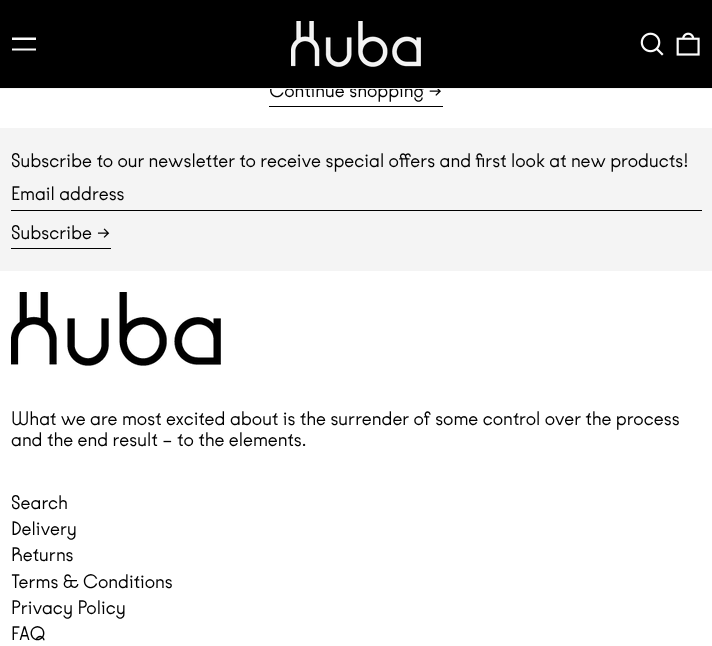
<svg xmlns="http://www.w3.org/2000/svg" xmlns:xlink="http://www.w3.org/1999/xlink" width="712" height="646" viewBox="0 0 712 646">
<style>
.cls-1{font:21px 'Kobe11';fill:#000000}
</style>
<rect width="100%" height="100%" fill="#ffffff"/>
<rect fill="#000000" x="0" y="0" width="712" height="88"/>
<path fill="#fcfcfc" fill-rule="evenodd" d="M36 48.5V50.5H12V48.5ZM36 37.5V40H12V37.5Z"/>
<image xlink:href="image0.png" x="291" y="21" width="130" height="46"/>
<image xlink:href="image1.png" x="640" y="32" width="24" height="24"/>
<image xlink:href="image2.png" x="676" y="32" width="24" height="24"/>
<rect fill="#000000" x="269" y="106" width="174" height="1"/>
<rect fill="#f4f4f4" x="0" y="128" width="712" height="143"/>
<rect fill="#000000" x="11" y="210" width="691" height="1"/>
<rect fill="#000000" x="11" y="248" width="100" height="1"/>
<image xlink:href="image3.png" x="11" y="292" width="210" height="74"/>
<text class="cls-1" x="269" y="97">Continue shopping →</text>
<rect fill="#f4f4f4" x="0" y="88" width="712" height="1"/>
<text class="cls-1"><tspan x="11" y="167">Subscribe to our newsletter to receive special offers and first look at new products!</tspan><tspan x="11" y="200">Email address</tspan><tspan x="11" y="239">Subscribe →</tspan></text>
<text class="cls-1"><tspan x="11" y="425">What we are most excited about is the surrender of some control over the process</tspan><tspan x="11" y="446">and the end result – to the elements.</tspan></text>
<text class="cls-1"><tspan x="11" y="509">Search</tspan><tspan x="11" y="535">Delivery</tspan><tspan x="11" y="561">Returns</tspan><tspan x="11" y="588">Terms &amp; Conditions</tspan><tspan x="11" y="614">Privacy Policy</tspan><tspan x="11" y="640">FAQ</tspan></text>
</svg>
